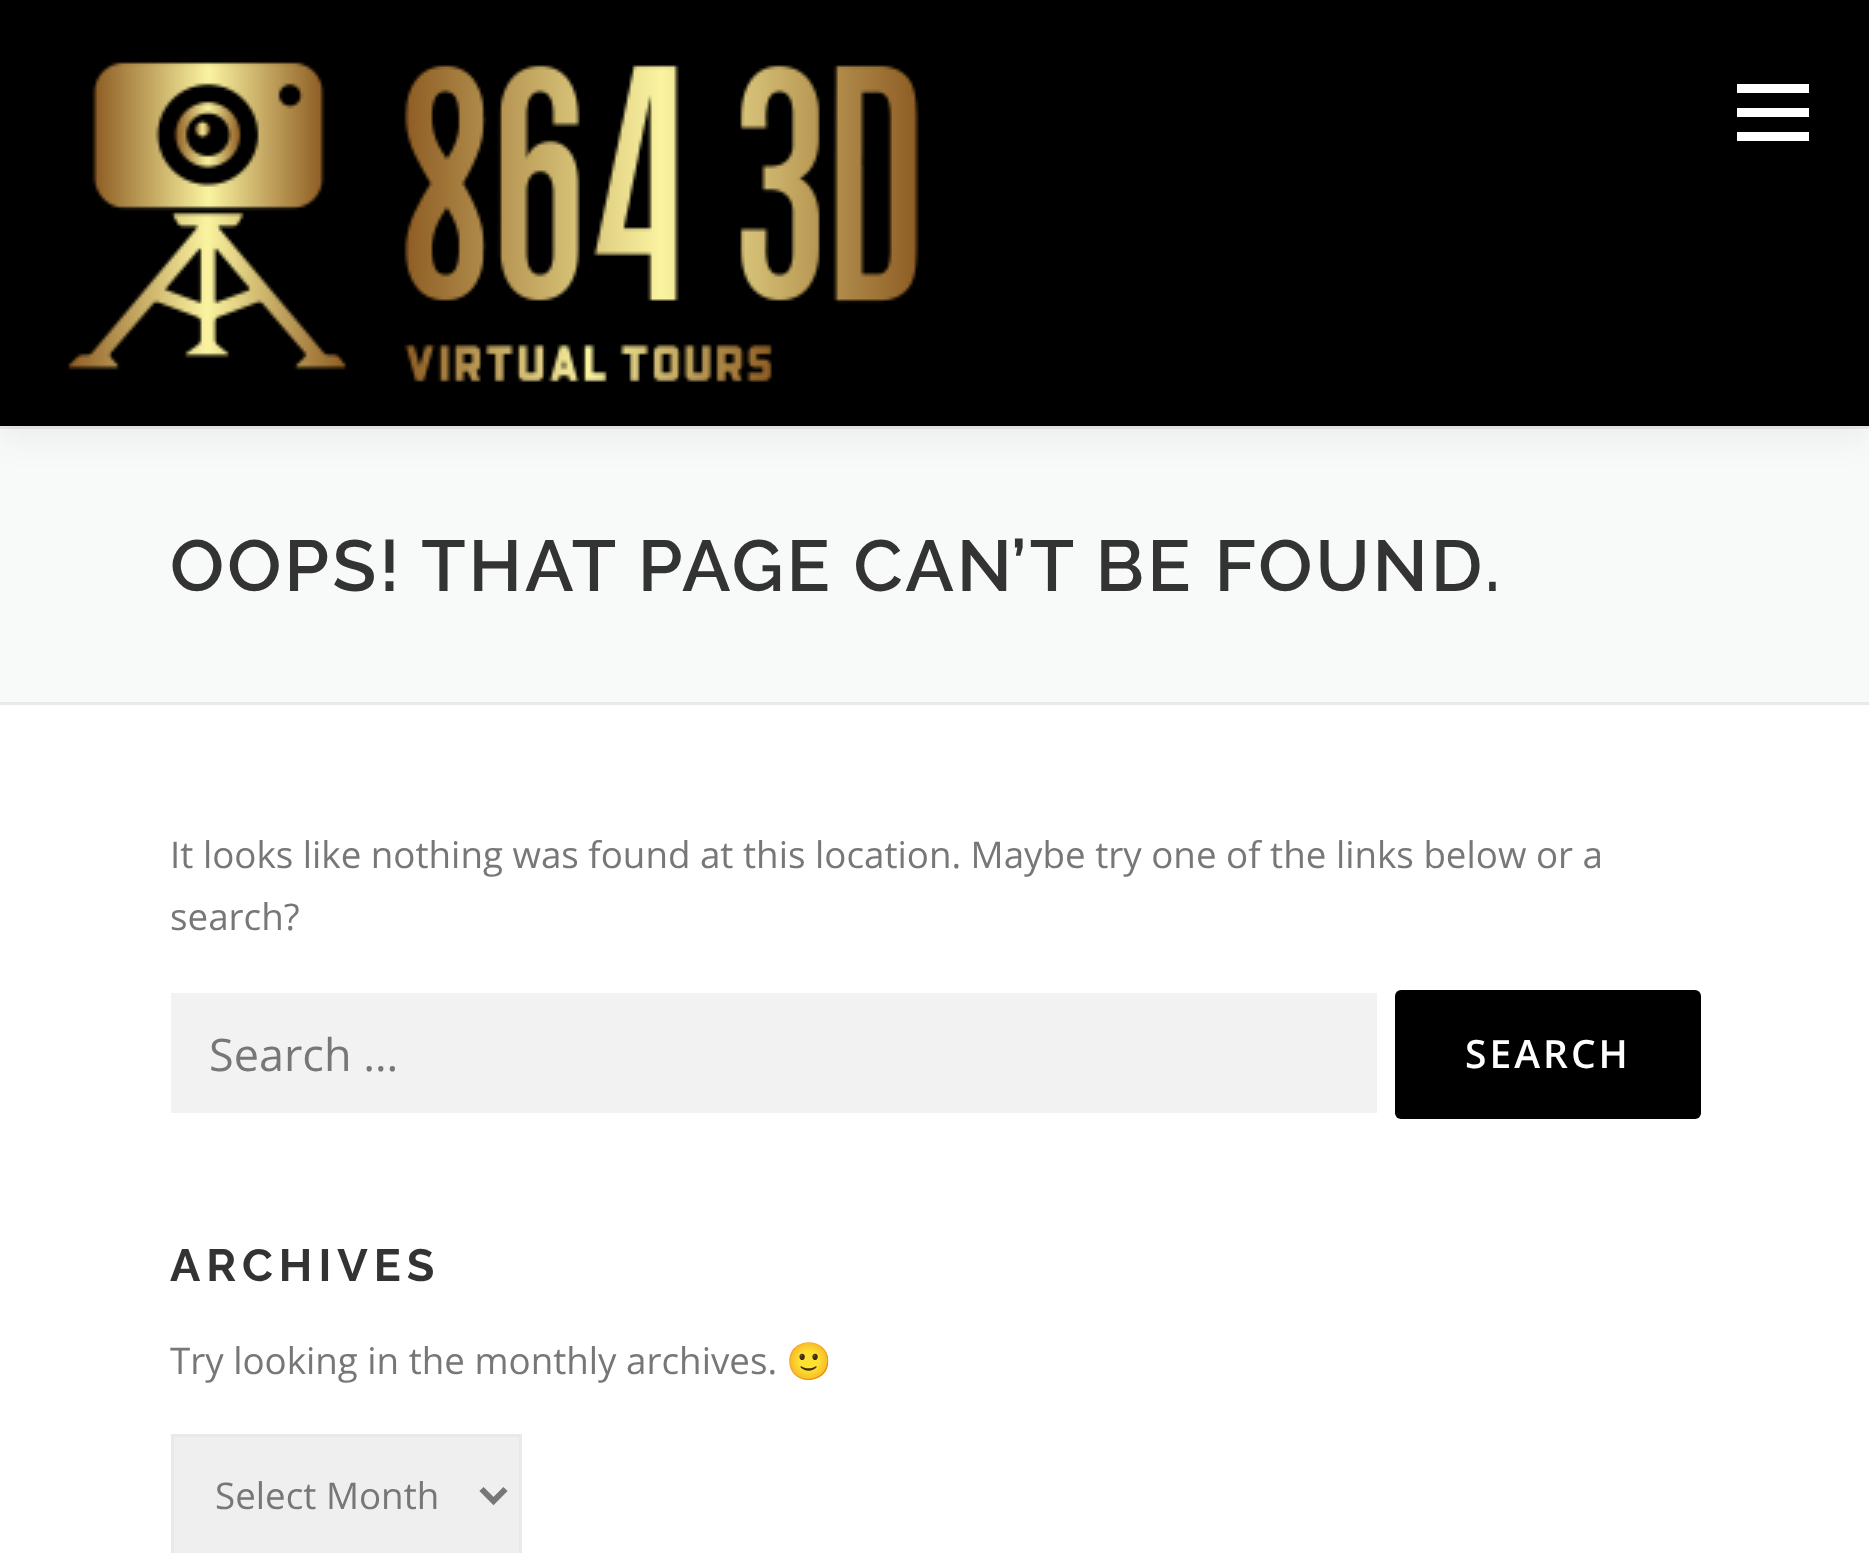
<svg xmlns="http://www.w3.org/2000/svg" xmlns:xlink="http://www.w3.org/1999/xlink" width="1869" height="1553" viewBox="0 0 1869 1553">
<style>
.cls-1{font:600 72px Raleway;letter-spacing:3px;fill:#333333}
.cls-2{font:36.75px Open Sans;fill:#777777}
.cls-3{font:45px Open Sans;fill:#777777}
.cls-4{font:600 39px Open Sans;letter-spacing:3px;fill:#ffffff}
.cls-5{font:bold 45px Raleway;letter-spacing:6px;fill:#333333}
.cls-6{font:36.75px Noto Color Emoji;fill:#777777}
</style>
<rect width="100%" height="100%" fill="#ffffff"/>
<rect fill="#f8f9f9" x="0" y="429" width="1869" height="273"/>
<rect fill="#e9e9e9" x="0" y="426" width="1869" height="3"/>
<rect fill="#323232" fill-opacity="0.06" filter="blur(15px)" x="0" y="15" width="1869" height="426"/>
<rect fill="#000000" x="0" y="0" width="1869" height="426"/>
<image xlink:href="image0.png" x="67" y="62" width="852" height="320"/>
<rect fill="#ffffff" x="1737" y="108" width="72" height="9"/>
<rect fill="#ffffff" x="1737" y="84" width="72" height="9"/>
<rect fill="#ffffff" x="1737" y="132" width="72" height="9"/>
<rect fill="#e9e9e9" x="0" y="702" width="1869" height="3"/>
<rect fill="#f2f2f2" x="171" y="993" width="1206" height="120"/>
<rect fill="#000000" x="1395" y="990" width="306" height="129" rx="6"/>
<path fill="#000000" fill-opacity="0.1" d="M1395 1110V1113C1395 1116 1398 1119 1401 1119H1695C1698 1119 1701 1116 1701 1113V1110C1701 1113 1698 1116 1695 1116H1401C1398 1116 1395 1113 1395 1110Z"/>
<rect fill="#efefef" stroke="#e9e9e9" stroke-width="3" x="172.5" y="1435.5" width="348" height="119"/>
<path fill="none" stroke="#777777" stroke-width="6" d="M481.5 1489L493.5 1501L505.5 1489"/>
<text class="cls-1" x="170" y="591">OOPS! THAT PAGE CAN’T BE FOUND.</text>
<text class="cls-2"><tspan x="170" y="868">It looks like nothing was found at this location. Maybe try one of the links below or a</tspan><tspan x="170" y="930">search?</tspan></text>
<text class="cls-3" x="209" y="1071">Search …</text>
<text class="cls-4" x="1465" y="1068">SEARCH</text>
<text class="cls-5" x="170" y="1281">ARCHIVES</text>
<text class="cls-2" x="170" y="1374">Try looking in the monthly archives.</text>
<text class="cls-6" x="786" y="1374">🙂</text>
<text class="cls-2" x="215" y="1509">Select Month</text>
</svg>
